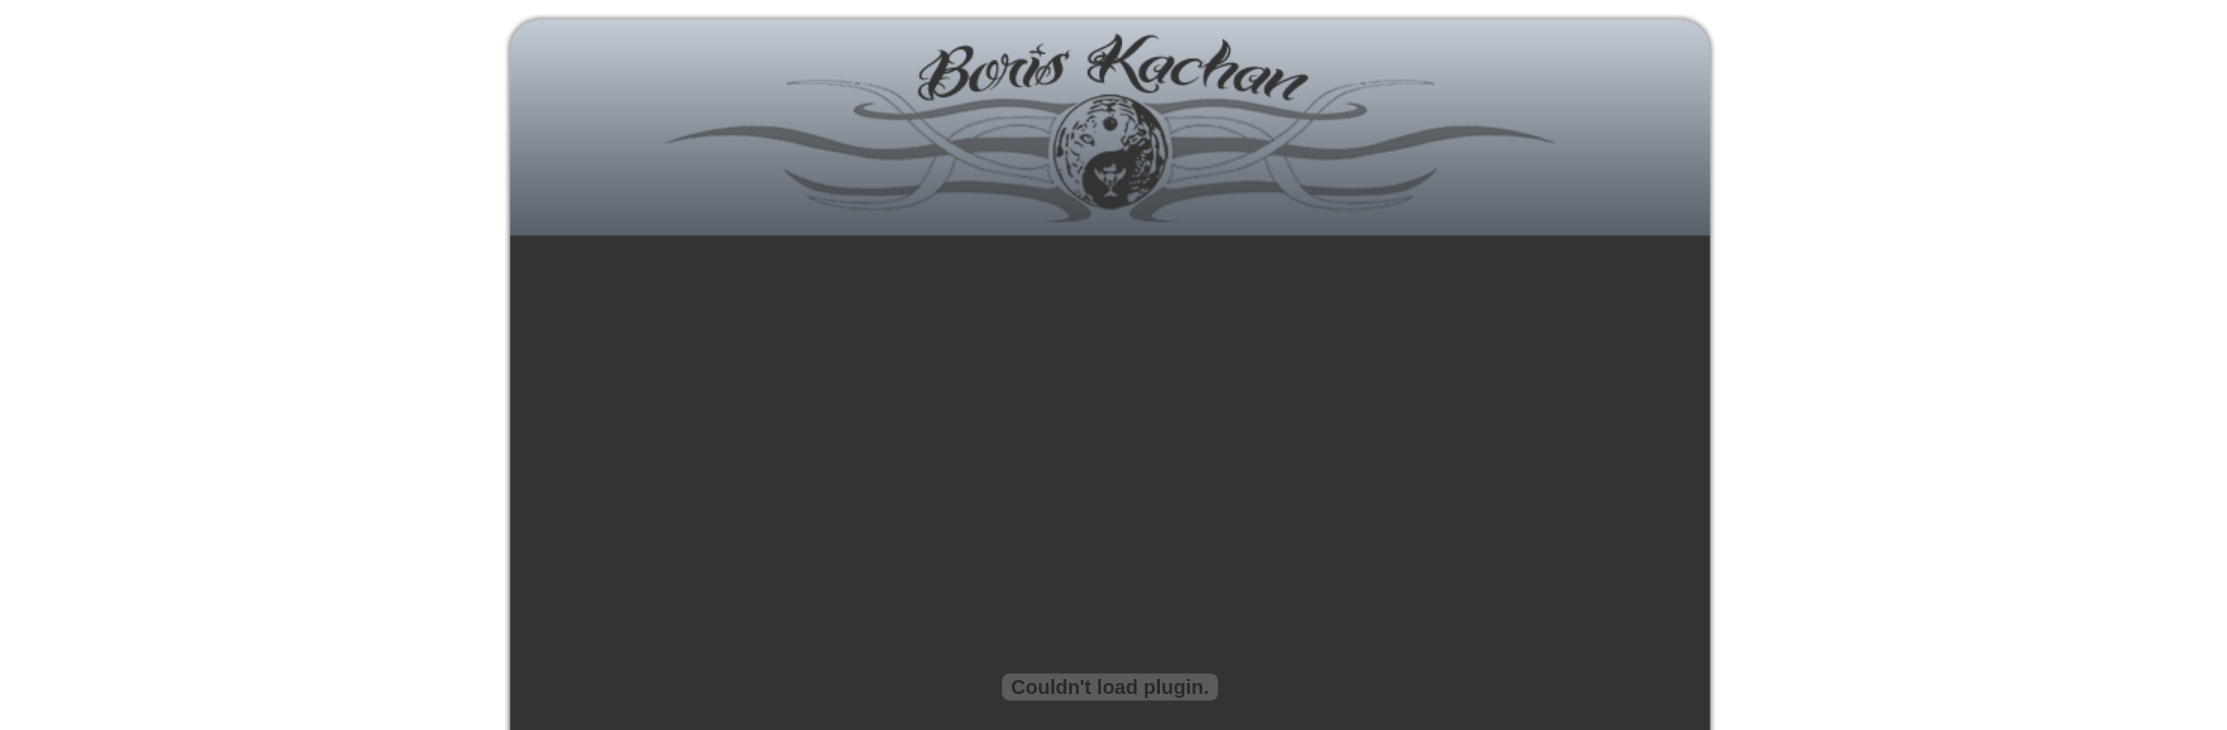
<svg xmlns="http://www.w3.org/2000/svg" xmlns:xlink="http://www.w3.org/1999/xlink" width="2227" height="730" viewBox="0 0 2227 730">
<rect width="100%" height="100%" fill="#ffffff"/>
<image xlink:href="image0.png" x="505" y="14" width="1211" height="716"/>
<image xlink:href="image1.png" x="1002" y="673" width="216" height="28"/>
</svg>
